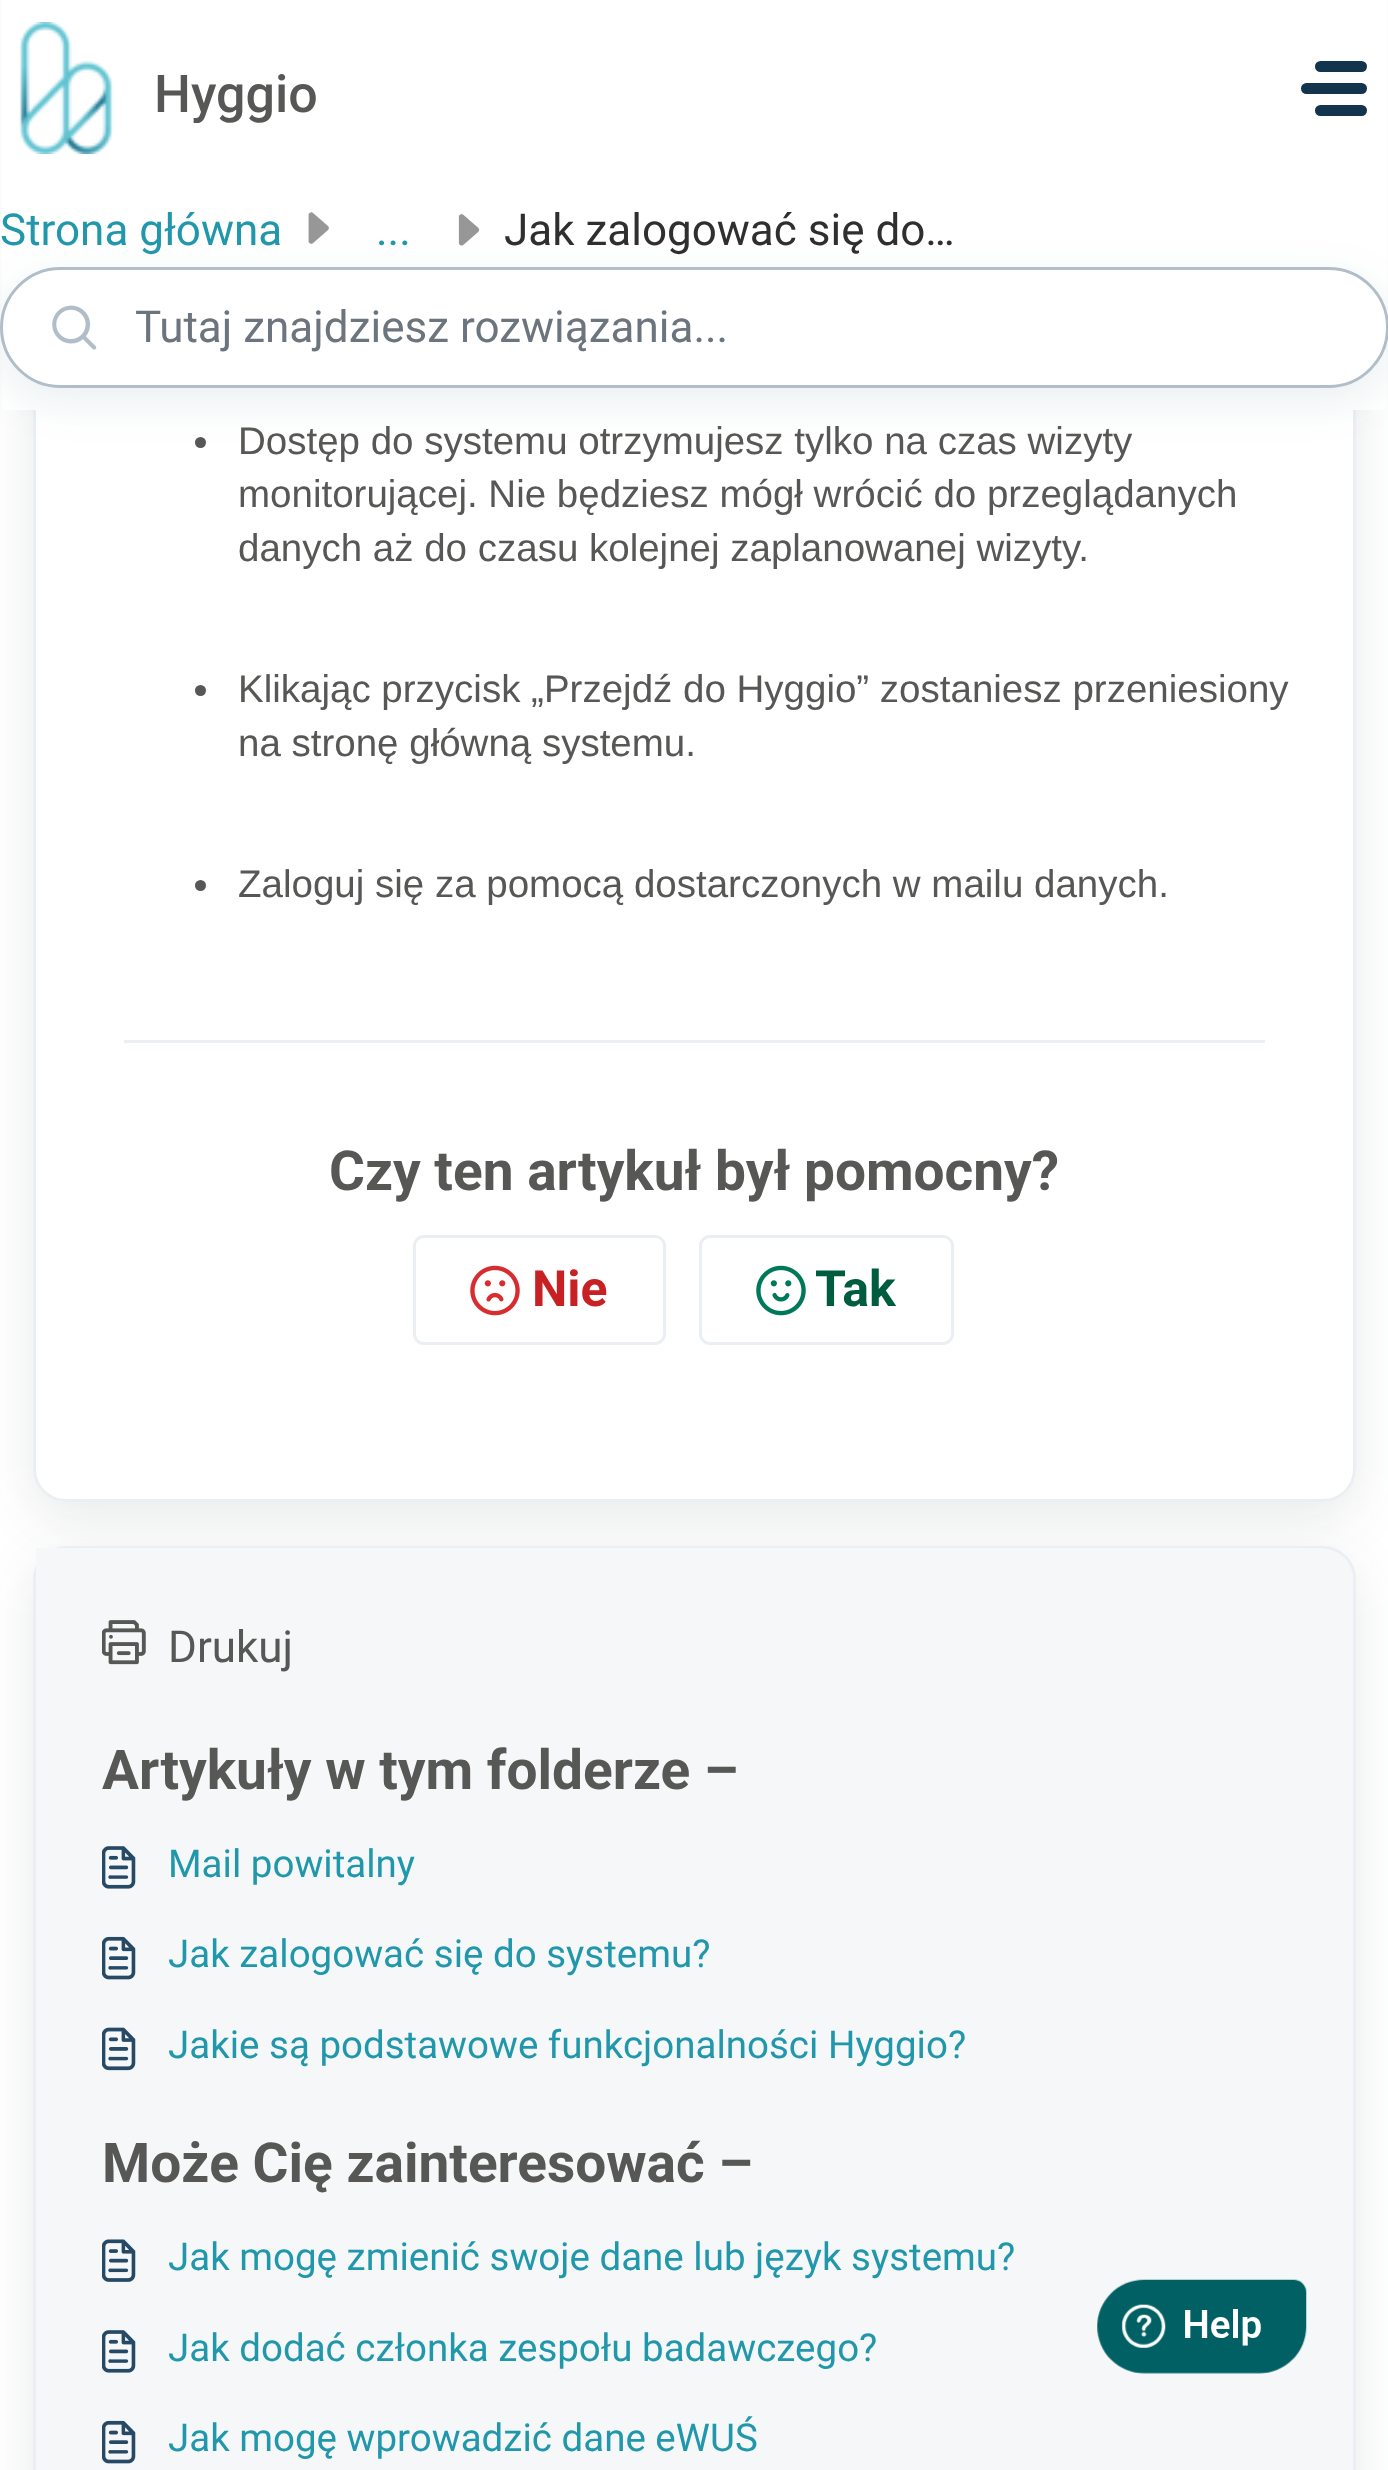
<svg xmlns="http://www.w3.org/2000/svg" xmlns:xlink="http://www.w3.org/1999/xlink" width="1388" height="2470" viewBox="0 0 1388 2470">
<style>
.cls-1{font:500 52px Roboto;fill:#575756}
.cls-2{font:44px Roboto;fill:#2197ac}
.cls-3{font:44px Roboto;fill:#302f30}
.cls-4{font:44px Roboto;fill:#6c757d}
.cls-5{font:38.5px Liberation Sans;fill:#575756}
.cls-6{font:bold 55px Roboto;fill:#575756}
.cls-7{font:bold 50px Roboto;fill:#c82124}
.cls-8{font:bold 50px Roboto;fill:#005c3f}
.cls-9{font:44px Roboto;fill:#575756}
.cls-10{font:38.5px Roboto;fill:#2197ac}
</style>
<defs>
<clipPath id="clip1"><path d="M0 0H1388V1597H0ZM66-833H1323C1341-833 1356-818 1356-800V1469C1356 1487 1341 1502 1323 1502H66C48 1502 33 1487 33 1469V-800C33-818 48-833 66-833Z" clip-rule="evenodd"/></clipPath>
<clipPath id="clip2"><path d="M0 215H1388V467H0ZM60.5 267H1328.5C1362 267 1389 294 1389 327.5C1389 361 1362 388 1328.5 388H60.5C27 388 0 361 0 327.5C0 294 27 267 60.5 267Z" clip-rule="evenodd"/></clipPath>
</defs>
<rect width="100%" height="100%" fill="#ffffff"/>
<g clip-path="url(#clip1)">
<rect fill="#27313a" fill-opacity="0.1" filter="blur(26px)" x="33" y="-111" width="1323" height="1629" rx="33"/>
</g>
<rect fill="none" stroke="#ebeff3" stroke-width="3" x="34.5" y="-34.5" width="1320" height="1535" rx="31.5"/>
<rect fill="#ffffff" x="2" y="0" width="1385" height="410"/>
<image xlink:href="image0.png" x="19" y="22" width="95" height="132"/>
<rect fill="#12344d" x="1315" y="61" width="52" height="11" rx="5.5"/>
<rect fill="#12344d" x="1301" y="83" width="66" height="11" rx="5.5"/>
<rect fill="#12344d" x="1315" y="105" width="52" height="11" rx="5.5"/>
<image xlink:href="image1.png" x="308" y="212" width="21" height="32"/>
<image xlink:href="image2.png" x="458" y="214" width="22" height="32"/>
<circle fill="#575756" cx="200.5" cy="442.5" r="5.5"/>
<g clip-path="url(#clip2)">
<rect fill="#0d4f5b" fill-opacity="0.08" filter="blur(20.5px)" x="-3" y="278" width="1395" height="126" rx="63"/>
</g>
<rect fill="none" stroke="#b1bdc8" stroke-width="3" x="1.5" y="268.5" width="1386" height="118" rx="59"/>
<image xlink:href="image3.png" x="52" y="305" width="45" height="45"/>
<circle fill="#575756" cx="200.5" cy="690.5" r="5.5"/>
<circle fill="#575756" cx="200.5" cy="885.5" r="5.5"/>
<rect fill="#ebeff3" x="124" y="1040" width="1141" height="3"/>
<rect fill="none" stroke="#ebeff3" stroke-width="3" x="414.5" y="1236.5" width="250" height="107" rx="9.5"/>
<image xlink:href="image4.png" x="470" y="1265" width="50" height="51"/>
<rect fill="none" stroke="#ebeff3" stroke-width="3" x="700.5" y="1236.5" width="252" height="107" rx="9.5"/>
<image xlink:href="image5.png" x="756" y="1265" width="50" height="51"/>
<rect fill="#27313a" fill-opacity="0.1" filter="blur(26px)" x="33" y="1562" width="1323" height="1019" rx="33"/>
<rect fill="none" stroke="#ebeff3" stroke-width="3" x="34.5" y="1547.5" width="1320" height="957" rx="31.5"/>
<path fill="#f5f7f9" d="M36 1548H1320C1338 1548 1353 1563 1353 1581V2470C1353 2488 1338 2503 1320 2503H36Z"/>
<image xlink:href="image6.png" x="102" y="1620" width="44" height="45"/>
<image xlink:href="image7.png" x="102" y="1846" width="34" height="43"/>
<image xlink:href="image8.png" x="102" y="1936" width="34" height="44"/>
<image xlink:href="image9.png" x="102" y="2027" width="34" height="44"/>
<image xlink:href="image10.png" x="102" y="2239" width="34" height="43"/>
<image xlink:href="image7.png" x="102" y="2330" width="34" height="43"/>
<image xlink:href="image8.png" x="102" y="2420" width="34" height="44"/>
<image xlink:href="image11.png" x="1097" y="2279" width="210" height="95"/>
<text class="cls-1" x="154" y="112">Hyggio</text>
<text class="cls-2" x="0" y="245">Strona główna</text>
<text class="cls-2" x="376" y="245">...</text>
<text class="cls-3" x="504" y="245">Jak zalogować się do…</text>
<text class="cls-4" x="135" y="342">Tutaj znajdziesz rozwiązania...</text>
<text class="cls-5"><tspan x="238" y="454">Dostęp do systemu otrzymujesz tylko na czas wizyty</tspan><tspan x="238" y="507">monitorującej. Nie będziesz mógł wrócić do przeglądanych</tspan><tspan x="238" y="561">danych aż do czasu kolejnej zaplanowanej wizyty.</tspan></text>
<text class="cls-5"><tspan x="238" y="702">Klikając przycisk „Przejdź do Hyggio” zostaniesz przeniesiony</tspan><tspan x="238" y="756">na stronę główną systemu.</tspan></text>
<text class="cls-5" x="238" y="897">Zaloguj się za pomocą dostarczonych w mailu danych.</text>
<text class="cls-6" x="329" y="1190">Czy ten artykuł był pomocny?</text>
<text class="cls-7" x="532" y="1306">Nie</text>
<text class="cls-8" x="815" y="1306">Tak</text>
<text class="cls-9" x="168" y="1662">Drukuj</text>
<text class="cls-6" x="102" y="1789">Artykuły w tym folderze –</text>
<text class="cls-10" x="168" y="1877">Mail powitalny</text>
<text class="cls-10" x="168" y="1967">Jak zalogować się do systemu?</text>
<text class="cls-10" x="168" y="2058">Jakie są podstawowe funkcjonalności Hyggio?</text>
<text class="cls-6" x="102" y="2182">Może Cię zainteresować –</text>
<text class="cls-10" x="168" y="2270">Jak mogę zmienić swoje dane lub język systemu?</text>
<text class="cls-10" x="168" y="2361">Jak dodać członka zespołu badawczego?</text>
<text class="cls-10" x="168" y="2451">Jak mogę wprowadzić dane eWUŚ</text>
</svg>
